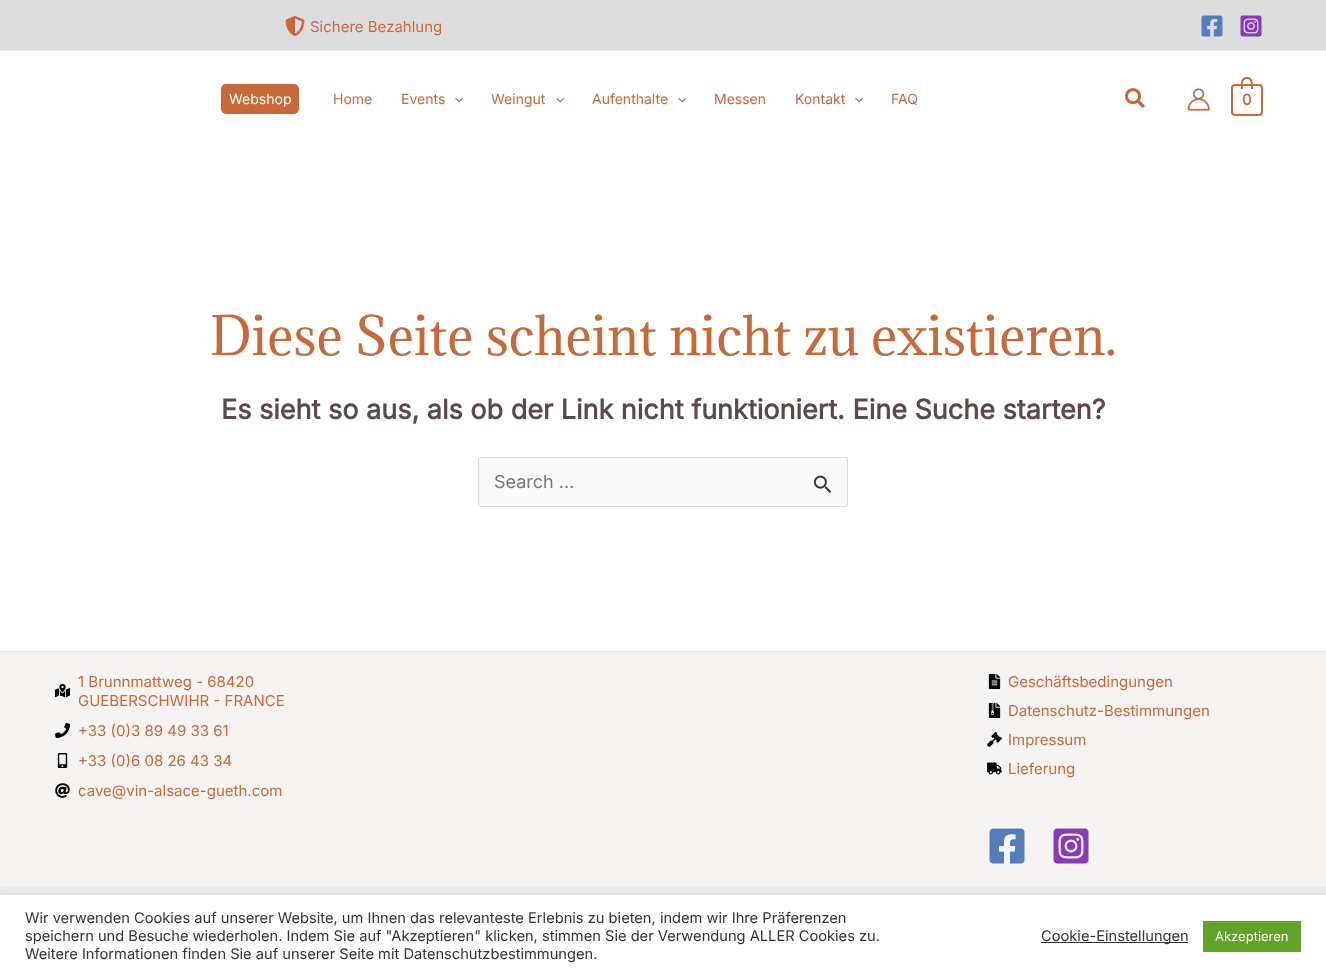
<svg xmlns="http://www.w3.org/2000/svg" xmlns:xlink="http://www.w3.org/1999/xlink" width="1326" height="977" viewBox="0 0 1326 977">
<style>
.cls-1{font:15px Inter;fill:#c8693a}
.cls-2{font:14px Inter;fill:#ffffff}
.cls-3{font:14px Inter;fill:#c8693a}
.cls-4{font:bold 15px Inter;fill:#c8693a}
.cls-5{font:50px Adamina;fill:#c8693a}
.cls-6{font:bold 27px Inter;fill:#5b4a4a}
.cls-7{font:18px Inter;fill:#757575}
.cls-8{font:14.67px Inter;fill:#333333}
.cls-9{font:13px Inter;fill:#ffffff}
</style>
<rect width="100%" height="100%" fill="#ffffff"/>
<rect fill="#dcdcdc" x="0" y="0" width="1326" height="50"/>
<rect fill="#eaeaea" x="0" y="50" width="1326" height="1"/>
<image xlink:href="image0.png" x="285" y="16" width="20" height="20"/>
<image xlink:href="image1.png" x="1201" y="15" width="22" height="22"/>
<image xlink:href="image2.png" x="1240" y="15" width="22" height="22"/>
<rect fill="#c8693a" x="221" y="84" width="78" height="30" rx="5"/>
<image xlink:href="image3.png" x="455" y="97" width="8" height="6"/>
<image xlink:href="image3.png" x="556" y="97" width="8" height="6"/>
<image xlink:href="image3.png" x="678" y="97" width="8" height="6"/>
<image xlink:href="image3.png" x="855" y="97" width="8" height="6"/>
<image xlink:href="image4.png" x="1125" y="88" width="20" height="20"/>
<image xlink:href="image5.png" x="1187" y="88" width="23" height="23"/>
<rect fill="none" stroke="#c8693a" stroke-width="2" x="1232" y="85" width="30" height="30" rx="3"/>
<path fill="#c8693a" fill-rule="evenodd" d="M1247 77C1253.5 77 1253 84.5 1253 89H1241C1241 84.5 1240 77 1247 77ZM1247 79C1252 79 1251 85.5 1251 89H1243C1243 85.5 1241.5 79 1247 79Z"/>
<rect fill="#fafafa" stroke="#dddddd" x="478.5" y="457.5" width="369" height="49" rx="1.5"/>
<image xlink:href="image6.png" x="813" y="475" width="18" height="18"/>
<rect fill="#f6f4f2" x="0" y="652" width="1326" height="234"/>
<rect fill="#e6e6e6" x="0" y="651" width="1326" height="1"/>
<image xlink:href="image7.png" x="55" y="683" width="15" height="15"/>
<image xlink:href="image8.png" x="55" y="723" width="15" height="15"/>
<image xlink:href="image9.png" x="57" y="753" width="11" height="15"/>
<image xlink:href="image10.png" x="55" y="783" width="15" height="15"/>
<image xlink:href="image11.png" x="988" y="674" width="13" height="15"/>
<image xlink:href="image12.png" x="988" y="703" width="13" height="15"/>
<image xlink:href="image13.png" x="987" y="732" width="15" height="15"/>
<image xlink:href="image14.png" x="987" y="762" width="15" height="13"/>
<image xlink:href="image15.png" x="989" y="828" width="36" height="36"/>
<image xlink:href="image16.png" x="1053" y="828" width="36" height="36"/>
<rect fill="#eeeeee" x="0" y="887" width="1326" height="8"/>
<rect fill="#f2f5f7" x="0" y="886" width="1326" height="1"/>
<rect fill="#acabab" fill-opacity="0.3" filter="blur(5px)" x="0" y="894" width="1326" height="82"/>
<rect fill="#ffffff" x="0" y="895" width="1326" height="82"/>
<rect fill="#333333" x="1041" y="942" width="147" height="1"/>
<rect fill="#61a229" x="1203" y="921" width="98" height="31"/>
<text class="cls-1" x="310" y="32">Sichere Bezahlung</text>
<text class="cls-2" x="229" y="104">Webshop</text>
<text class="cls-3" x="333" y="104">Home</text>
<text class="cls-3" x="401" y="104">Events</text>
<text class="cls-3" x="491" y="104">Weingut</text>
<text class="cls-3" x="592" y="104">Aufenthalte</text>
<text class="cls-3" x="714" y="104">Messen</text>
<text class="cls-3" x="795" y="104">Kontakt</text>
<text class="cls-3" x="891" y="104">FAQ</text>
<text class="cls-4" x="1242" y="105">0</text>
<text class="cls-5" x="210" y="355">Diese Seite scheint nicht zu existieren.</text>
<text class="cls-6" x="221" y="419">Es sieht so aus, als ob der Link nicht funktioniert. Eine Suche starten?</text>
<text class="cls-7" x="494" y="488">Search …</text>
<text class="cls-1"><tspan x="78" y="687">1 Brunnmattweg - 68420</tspan><tspan x="78" y="706">GUEBERSCHWIHR - FRANCE</tspan></text>
<text class="cls-1" x="78" y="736">+33 (0)3 89 49 33 61</text>
<text class="cls-1" x="78" y="766">+33 (0)6 08 26 43 34</text>
<text class="cls-1" x="78" y="796">cave@vin-alsace-gueth.com</text>
<text class="cls-1"><tspan x="1008" y="687">Geschäftsbedingungen</tspan><tspan x="1008" y="716">Datenschutz-Bestimmungen</tspan><tspan x="1008" y="745">Impressum</tspan><tspan x="1008" y="774">Lieferung</tspan></text>
<text class="cls-8"><tspan x="25" y="923">Wir verwenden Cookies auf unserer Website, um Ihnen das relevanteste Erlebnis zu bieten, indem wir Ihre Präferenzen</tspan><tspan x="25" y="941">speichern und Besuche wiederholen. Indem Sie auf "Akzeptieren" klicken, stimmen Sie der Verwendung ALLER Cookies zu.</tspan><tspan x="25" y="959">Weitere Informationen finden Sie auf unserer Seite mit Datenschutzbestimmungen.</tspan></text>
<text class="cls-8" x="1041" y="941">Cookie-Einstellungen</text>
<text class="cls-9" x="1215" y="941">Akzeptieren</text>
</svg>
